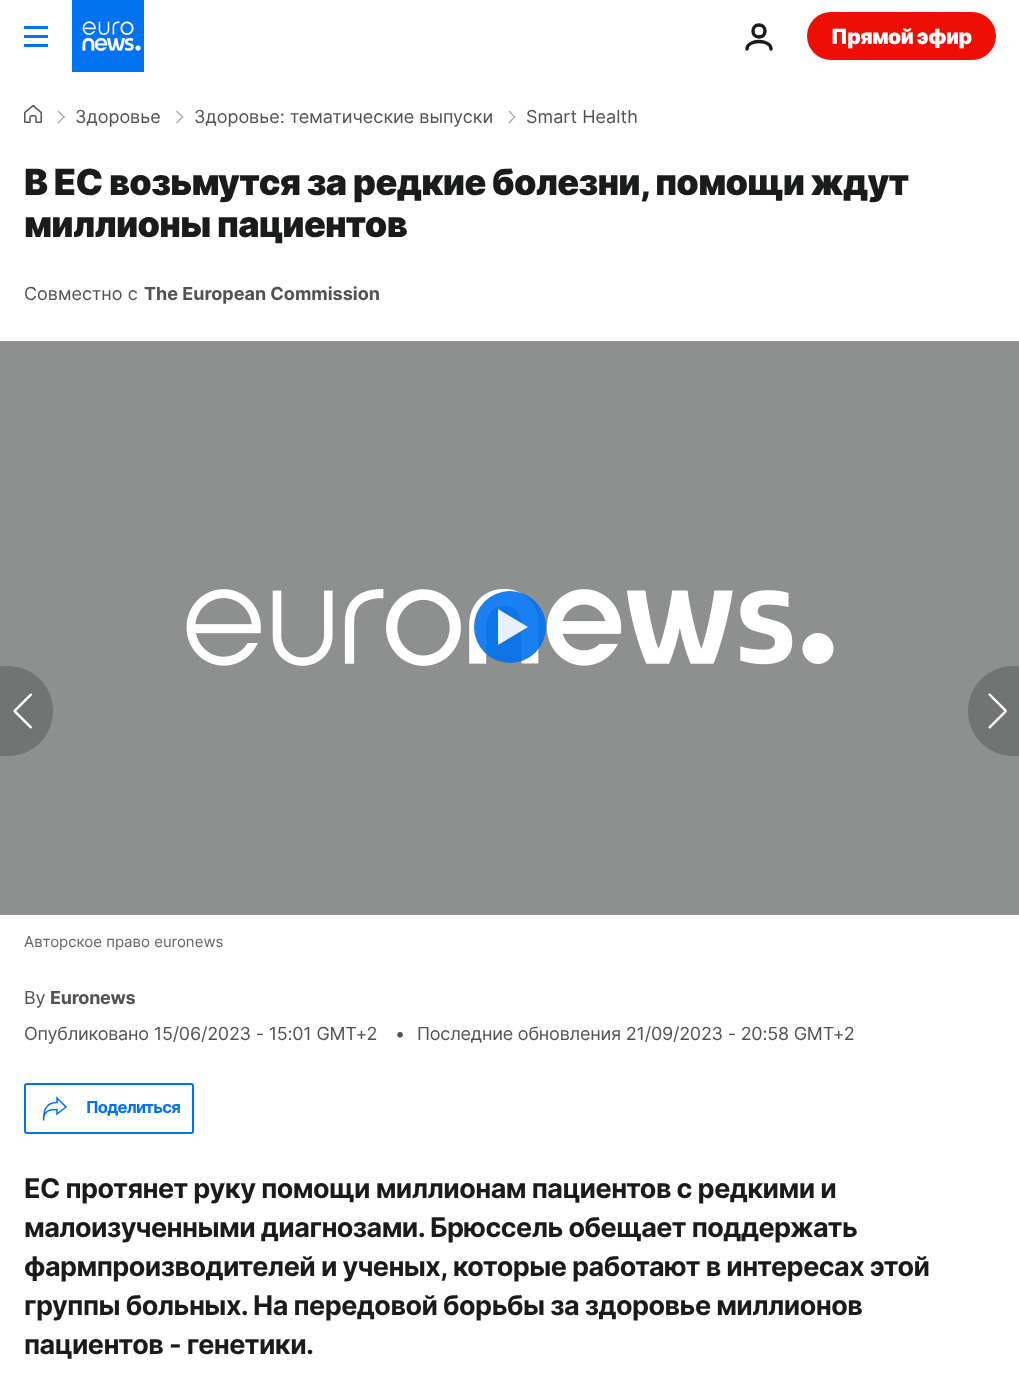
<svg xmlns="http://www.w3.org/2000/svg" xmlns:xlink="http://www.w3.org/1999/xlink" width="1019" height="1398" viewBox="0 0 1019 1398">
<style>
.cls-1{font:900 21px Inter;letter-spacing:-0.5px;fill:#ffffff}
.cls-2{font:18px Inter;fill:#515252}
.cls-3{font:900 36px Inter;letter-spacing:-0.7px;fill:#1a1b1b}
.cls-4{font:bold 18px Inter;fill:#515252}
.cls-5{font:15px Inter;fill:#666767}
.cls-6{font:18px Inter;letter-spacing:-0.25px;fill:#515252}
.cls-7{font:bold 18px Inter;letter-spacing:-0.25px;fill:#515252}
.cls-8{font:18px Inter;letter-spacing:-0.2px;fill:#515252}
.cls-9{font:bold 16.5px Inter;letter-spacing:-0.75px;fill:#0172f0}
.cls-10{font:bold 27px Inter;letter-spacing:-0.55px;fill:#1a1b1b}
</style>
<rect width="100%" height="100%" fill="#ffffff"/>
<rect fill="#0172f0" x="24" y="26" width="24" height="3"/>
<rect fill="#0172f0" x="24" y="35" width="24" height="3"/>
<rect fill="#0172f0" x="24" y="44" width="24" height="3"/>
<image xlink:href="image0.png" x="72" y="0" width="72" height="72"/>
<path fill="none" stroke="#1a1b1b" stroke-width="3.4" stroke-linecap="round" stroke-linejoin="round" d="M747 49C747 39 771 39 771 49M759 37C767 37 767 25 759 25C751 25 751 37 759 37Z"/>
<rect fill="#ed0e05" x="807" y="12" width="189" height="48" rx="24"/>
<image xlink:href="image1.png" x="24" y="105" width="18" height="18"/>
<path fill="#abadae" d="M58.5 110.5L65 117L64 118L57.5 111.5Z"/>
<path fill="#abadae" d="M64 116L65 117L58.5 123.5L57.5 122.5Z"/>
<path fill="#abadae" d="M177 110.5L183.5 117L182.5 118L176 111.5Z"/>
<path fill="#abadae" d="M182.5 116L183.5 117L177 123.5L176 122.5Z"/>
<path fill="#abadae" d="M509.5 110.5L515.5 117L514.5 118L508.5 111.5Z"/>
<path fill="#abadae" d="M514.5 116L515.5 117L509.5 123.5L508.5 122.5Z"/>
<rect fill="#8e9090" x="0" y="341" width="1019" height="574"/>
<image xlink:href="image2.png" x="186" y="588" width="648" height="78"/>
<circle fill="#0172f0" fill-opacity="0.9" cx="510" cy="627" r="36"/>
<path fill="#ffffff" fill-opacity="0.9" d="M498 645V609L528 627Z"/>
<rect fill="none" stroke="#0172f0" stroke-width="2" x="25" y="1084" width="168" height="49" rx="2"/>
<path fill="none" stroke="#0172f0" stroke-width="1.5" stroke-linecap="round" d="M57 1102.5C44.5 1102.5 43.5 1112.5 43.5 1120.5C43.5 1109.5 51.5 1109.5 57 1109.5V1114L66 1107L57 1098Z"/>
<path fill="#727373" d="M0 666H8C33 666 53 686 53 711C53 736 33 756 8 756H0Z"/>
<image xlink:href="image3.png" x="13" y="693" width="19" height="36"/>
<path fill="#727373" d="M1013 666H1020V756H1013C988 756 968 736 968 711C968 686 988 666 1013 666Z"/>
<image xlink:href="image4.png" x="988" y="693" width="19" height="36"/>
<text class="cls-1" x="831" y="44">Прямой эфир</text>
<text class="cls-2" x="75" y="123">Здоровье</text>
<text class="cls-2" x="194" y="123">Здоровье: тематические выпуски</text>
<text class="cls-2" x="526" y="123">Smart Health</text>
<text class="cls-3"><tspan x="24" y="195">В ЕС возьмутся за редкие болезни, помощи ждут</tspan><tspan x="24" y="237">миллионы пациентов</tspan></text>
<text class="cls-2" x="24" y="300">Совместно с</text>
<text class="cls-4" x="144" y="300">The European Commission</text>
<text class="cls-5" x="24" y="947">Авторское право euronews</text>
<text class="cls-6" x="24" y="1004">By</text>
<text class="cls-7" x="50" y="1004">Euronews</text>
<text class="cls-8" x="24" y="1040">Опубликовано 15/06/2023 - 15:01 GMT+2</text>
<text class="cls-8" x="395" y="1040">•</text>
<text class="cls-8" x="417" y="1040">Последние обновления 21/09/2023 - 20:58 GMT+2</text>
<text class="cls-9" x="86" y="1113">Поделиться</text>
<text class="cls-10"><tspan x="24" y="1198">ЕС протянет руку помощи миллионам пациентов с редкими и</tspan><tspan x="24" y="1237">малоизученными диагнозами. Брюссель обещает поддержать</tspan><tspan x="24" y="1276">фармпроизводителей и ученых, которые работают в интересах этой</tspan><tspan x="24" y="1315">группы больных. На передовой борьбы за здоровье миллионов</tspan><tspan x="24" y="1354">пациентов - генетики.</tspan></text>
</svg>
